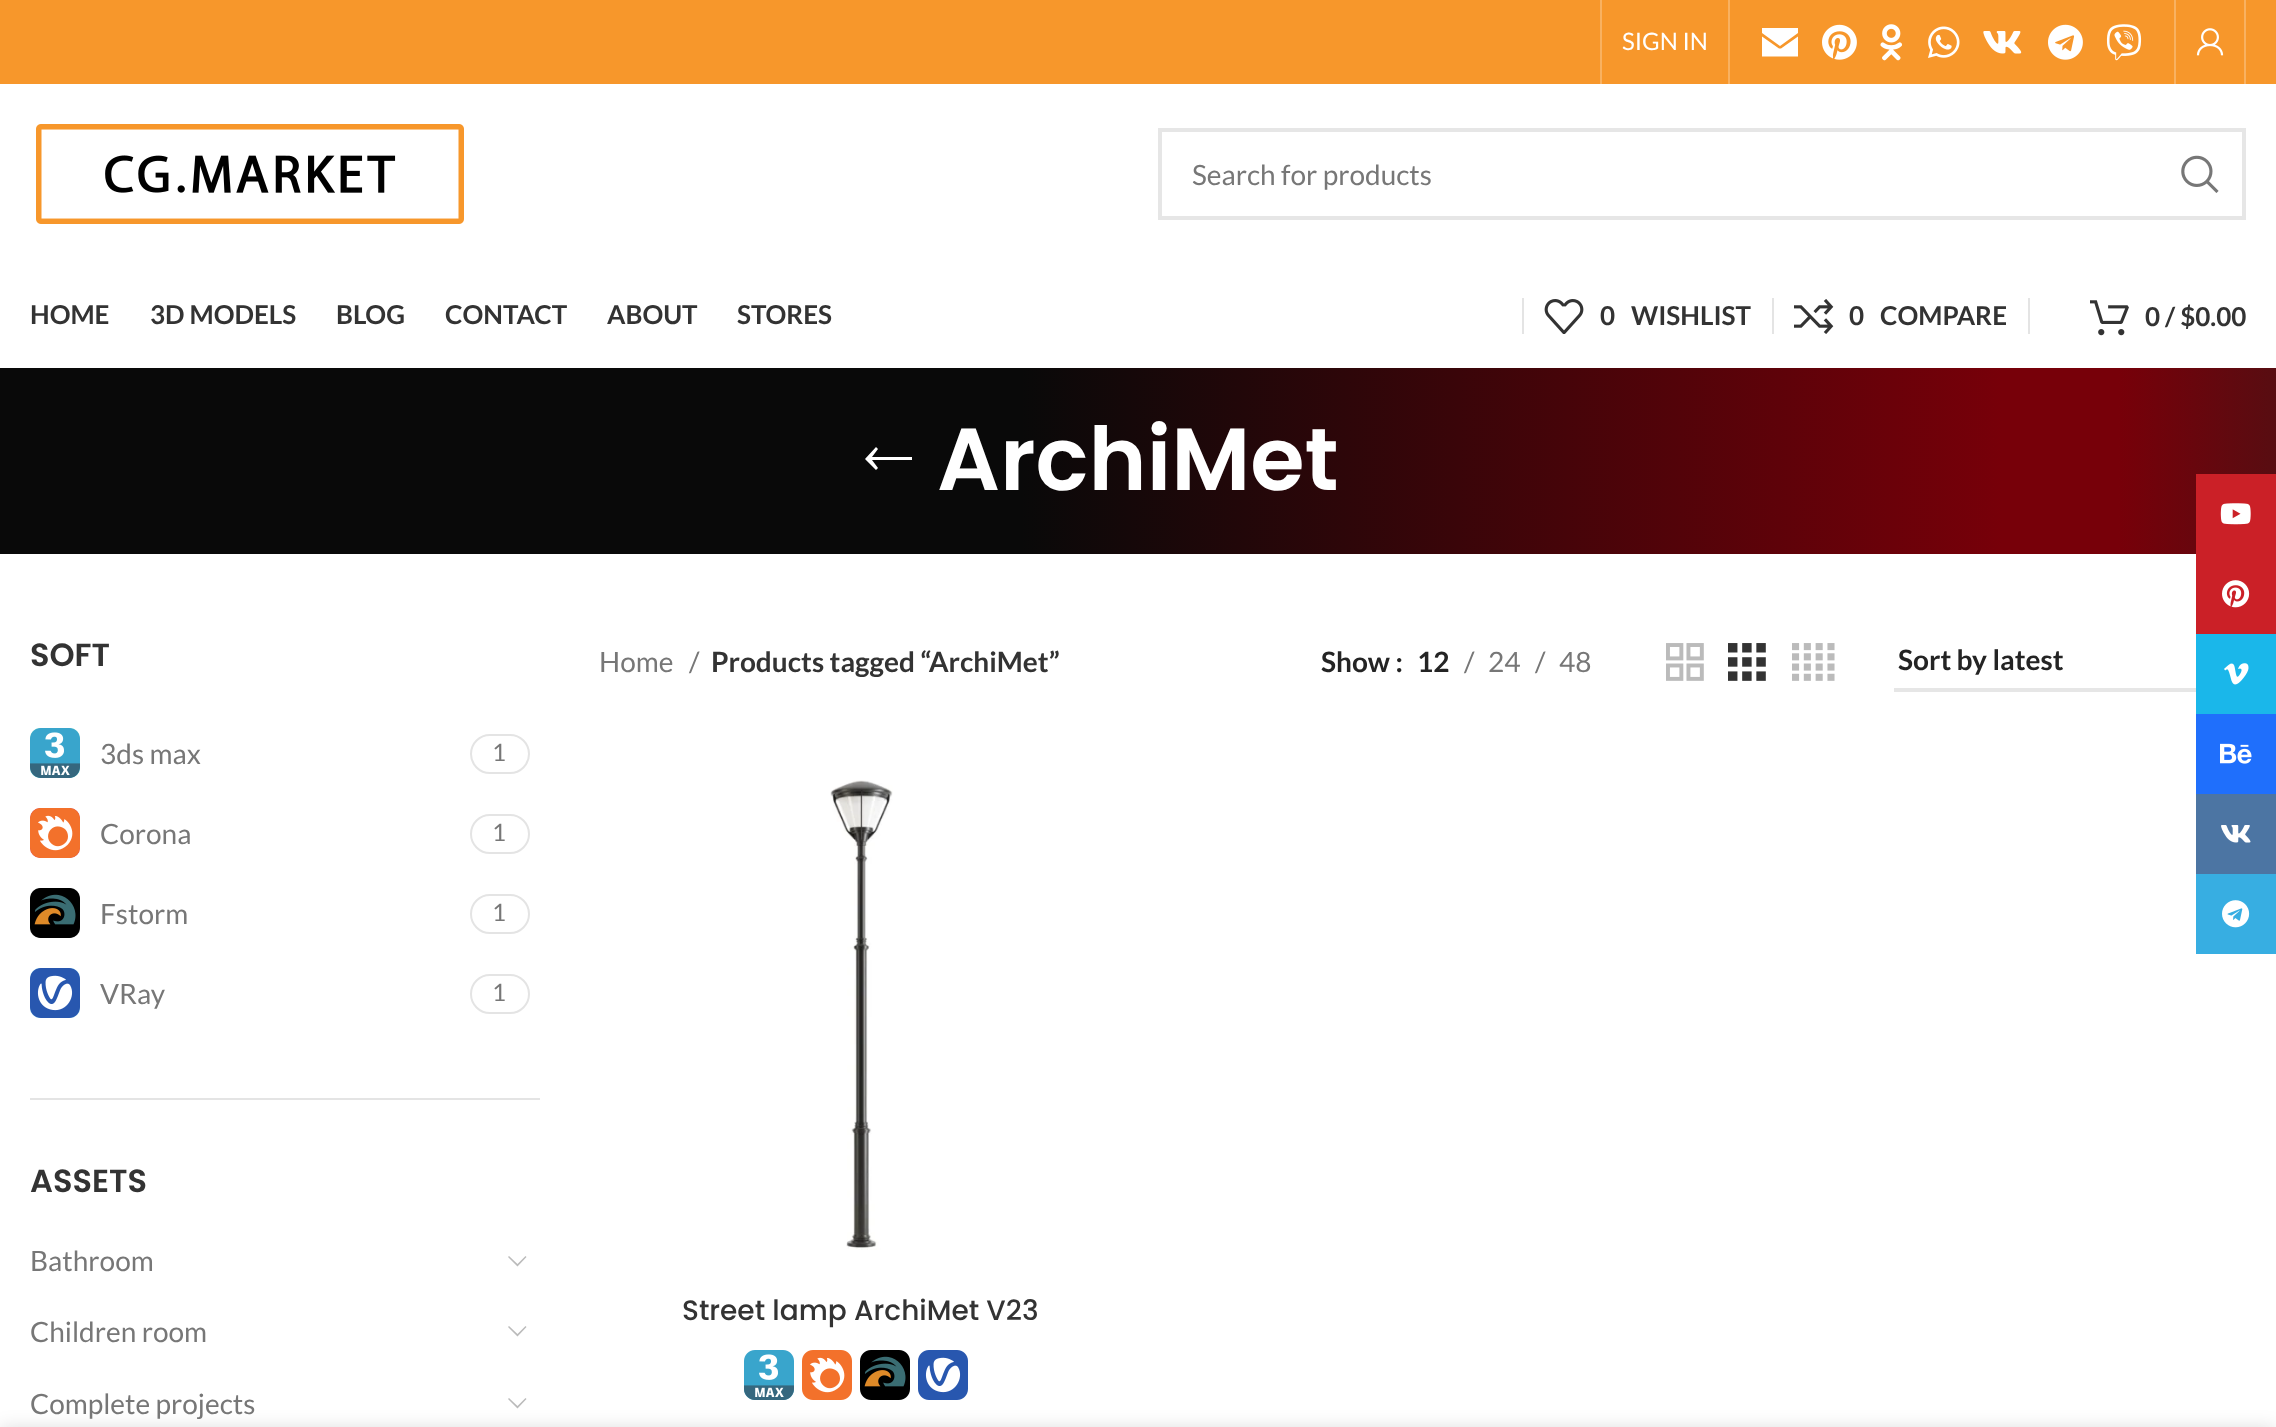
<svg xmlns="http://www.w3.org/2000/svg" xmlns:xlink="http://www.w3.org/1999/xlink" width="2276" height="1427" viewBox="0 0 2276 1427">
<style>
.cls-1{font:24px Lato;fill:#ffffff}
.cls-2{font:28px Lato;fill:#777777}
.cls-3{font:bold 26px Lato;fill:#333333}
.cls-4{font:600 88px Poppins;fill:#ffffff}
.cls-5{font:600 32px Poppins;fill:#333333}
.cls-6{font:24px Lato;fill:#777777}
.cls-7{font:bold 28px Lato;fill:#333333}
.cls-8{font:bold 28px Lato;fill:#242424}
.cls-9{font:500 28px Poppins;fill:#333333}
</style>
<defs>
<linearGradient id="g1" gradientUnits="userSpaceOnUse" x1="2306" y1="461" x2="-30" y2="461"><stop offset="0" stop-color="#000000"/><stop offset="0" stop-color="#520f13"/><stop offset="0.08" stop-color="#770009"/><stop offset="0.13" stop-color="#770009"/><stop offset="0.55" stop-color="#090909"/><stop offset="1" stop-color="#090909"/></linearGradient>
</defs>
<rect width="100%" height="100%" fill="#ffffff"/>
<rect fill="#f7972b" x="0" y="0" width="2276" height="84"/>
<rect fill="#f9b160" x="1600" y="0" width="2" height="84"/>
<rect fill="#f9b160" x="1728" y="0" width="2" height="84"/>
<path fill="#ffffff" d="M1798 28H1762V33L1780 46L1798 33ZM1798 36.5L1781 48.5H1779L1762 36.5V56.5H1798Z"/>
<image xlink:href="image0.png" x="1822" y="24" width="35" height="36"/>
<image xlink:href="image1.png" x="1880" y="24" width="23" height="37"/>
<image xlink:href="image2.png" x="1928" y="26" width="32" height="32"/>
<image xlink:href="image3.png" x="1983" y="31" width="39" height="23"/>
<image xlink:href="image4.png" x="2048" y="24" width="35" height="36"/>
<image xlink:href="image5.png" x="2106" y="24" width="36" height="37"/>
<rect fill="#f9b160" x="2174" y="0" width="2" height="84"/>
<image xlink:href="image6.png" x="2196" y="28" width="28" height="28"/>
<rect fill="#f9b160" x="2244" y="0" width="2" height="84"/>
<image xlink:href="image7.png" x="36" y="124" width="428" height="100"/>
<rect fill="none" stroke="#e6e6e6" stroke-width="4" x="1160" y="130" width="1084" height="88"/>
<image xlink:href="image8.png" x="2181" y="155" width="38" height="38"/>
<rect fill="#e4e4e4" x="1522" y="298" width="2" height="36"/>
<image xlink:href="image9.png" x="1544" y="299" width="40" height="35"/>
<rect fill="#e4e4e4" x="1772" y="298" width="2" height="36"/>
<image xlink:href="image10.png" x="1794" y="299" width="40" height="35"/>
<rect fill="#e4e4e4" x="2028" y="298" width="2" height="36"/>
<image xlink:href="image11.png" x="2090" y="300" width="39" height="36"/>
<rect fill="url(#g1)" x="0" y="368" width="2276" height="186"/>
<path fill="#ffffff" d="M878 468L872 460H912V457H872L878 449L876 447L865 459L876 470Z"/>
<rect fill="#e4e4e4" x="30" y="1098" width="510" height="2"/>
<rect fill="#73d1cc" x="30" y="728" width="50" height="50" rx="10"/>
<image xlink:href="image12.png" x="30" y="728" width="50" height="50"/>
<rect fill="none" stroke="#e4e4e4" stroke-width="2" x="471" y="735" width="58" height="38" rx="19"/>
<rect fill="#dd4b4b" x="30" y="808" width="50" height="50" rx="10"/>
<image xlink:href="image13.png" x="30" y="808" width="50" height="50"/>
<rect fill="none" stroke="#e4e4e4" stroke-width="2" x="471" y="815" width="58" height="38" rx="19"/>
<rect fill="#4c4c4c" x="30" y="888" width="50" height="50" rx="10"/>
<image xlink:href="image14.png" x="30" y="888" width="50" height="50"/>
<rect fill="none" stroke="#e4e4e4" stroke-width="2" x="471" y="895" width="58" height="38" rx="19"/>
<rect fill="#7bbbe5" x="30" y="968" width="50" height="50" rx="10"/>
<image xlink:href="image15.png" x="30" y="968" width="50" height="50"/>
<rect fill="none" stroke="#e4e4e4" stroke-width="2" x="471" y="975" width="58" height="38" rx="19"/>
<path fill="#bbbbbb" d="M525.5 1256L517.5 1264L509 1256L508 1257L517.5 1266.5L526.5 1257Z"/>
<path fill="#bbbbbb" d="M525.5 1326L517.5 1334L509 1326L508 1327L517.5 1336.5L526.5 1327Z"/>
<path fill="#bbbbbb" d="M525.5 1398L517.5 1406L509 1398L508 1399L517.5 1408.5L526.5 1399Z"/>
<image xlink:href="image16.png" x="1666" y="643" width="38" height="38"/>
<image xlink:href="image17.png" x="1728" y="643" width="38" height="38"/>
<image xlink:href="image18.png" x="1792" y="643" width="43" height="38"/>
<rect fill="#e6e6e6" x="1894" y="688" width="302" height="4"/>
<image xlink:href="image19.png" x="830" y="780" width="63" height="470"/>
<image xlink:href="image20.png" x="744" y="1350" width="50" height="50"/>
<image xlink:href="image21.png" x="802" y="1350" width="50" height="50"/>
<image xlink:href="image22.png" x="860" y="1350" width="50" height="50"/>
<image xlink:href="image23.png" x="918" y="1350" width="50" height="50"/>
<rect fill="#cb2027" x="2196" y="474" width="80" height="160"/>
<image xlink:href="image24.png" x="2220" y="503" width="31" height="22"/>
<image xlink:href="image25.png" x="2222" y="580" width="28" height="28"/>
<rect fill="#1ab7ea" x="2196" y="634" width="80" height="80"/>
<image xlink:href="image26.png" x="2224" y="663" width="25" height="22"/>
<rect fill="#1f6ffc" x="2196" y="714" width="80" height="80"/>
<image xlink:href="image27.png" x="2220" y="743" width="32" height="21"/>
<rect fill="#4c75a3" x="2196" y="794" width="80" height="80"/>
<image xlink:href="image28.png" x="2221" y="825" width="30" height="18"/>
<rect fill="#37aee2" x="2196" y="874" width="80" height="80"/>
<image xlink:href="image29.png" x="2222" y="900" width="28" height="28"/>
<rect fill="#000000" fill-opacity="0.14" filter="blur(9px)" x="0" y="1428" width="2276" height="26"/>
<text class="cls-1" x="1622" y="50">SIGN IN</text>
<text class="cls-2" x="1192" y="185">Search for products</text>
<text class="cls-3" x="30" y="324">HOME</text>
<text class="cls-3" x="150" y="324">3D MODELS</text>
<text class="cls-3" x="336" y="324">BLOG</text>
<text class="cls-3" x="445" y="324">CONTACT</text>
<text class="cls-3" x="607" y="324">ABOUT</text>
<text class="cls-3" x="737" y="324">STORES</text>
<text class="cls-3" x="1600" y="325">0</text>
<text class="cls-3" x="1631" y="325">WISHLIST</text>
<text class="cls-3" x="1849" y="325">0</text>
<text class="cls-3" x="1880" y="325">COMPARE</text>
<text class="cls-3" x="2145" y="326">0 / $0.00</text>
<text class="cls-4" x="937" y="490">ArchiMet</text>
<text class="cls-5" x="30" y="666">SOFT</text>
<text class="cls-2" x="100" y="764">3ds max</text>
<text class="cls-6" x="492" y="761">1</text>
<text class="cls-2" x="100" y="844">Corona</text>
<text class="cls-6" x="492" y="841">1</text>
<text class="cls-2" x="100" y="924">Fstorm</text>
<text class="cls-6" x="492" y="921">1</text>
<text class="cls-2" x="100" y="1004">VRay</text>
<text class="cls-6" x="492" y="1001">1</text>
<text class="cls-5" x="30" y="1192">ASSETS</text>
<text class="cls-2" x="30" y="1271">Bathroom</text>
<text class="cls-2" x="30" y="1342">Children room</text>
<text class="cls-2" x="30" y="1414">Complete projects</text>
<text class="cls-2" x="599" y="672">Home</text>
<text class="cls-2" x="689" y="672">/</text>
<text class="cls-7" x="711" y="672">Products tagged “ArchiMet”</text>
<text class="cls-8" x="1321" y="672">Show :</text>
<text class="cls-8" x="1417" y="672">12</text>
<text class="cls-2" x="1464" y="672">/</text>
<text class="cls-2" x="1488" y="672">24</text>
<text class="cls-2" x="1535" y="672">/</text>
<text class="cls-2" x="1559" y="672">48</text>
<text class="cls-8" x="1898" y="670">Sort by latest</text>
<text class="cls-9" x="682" y="1320">Street lamp ArchiMet V23</text>
</svg>
